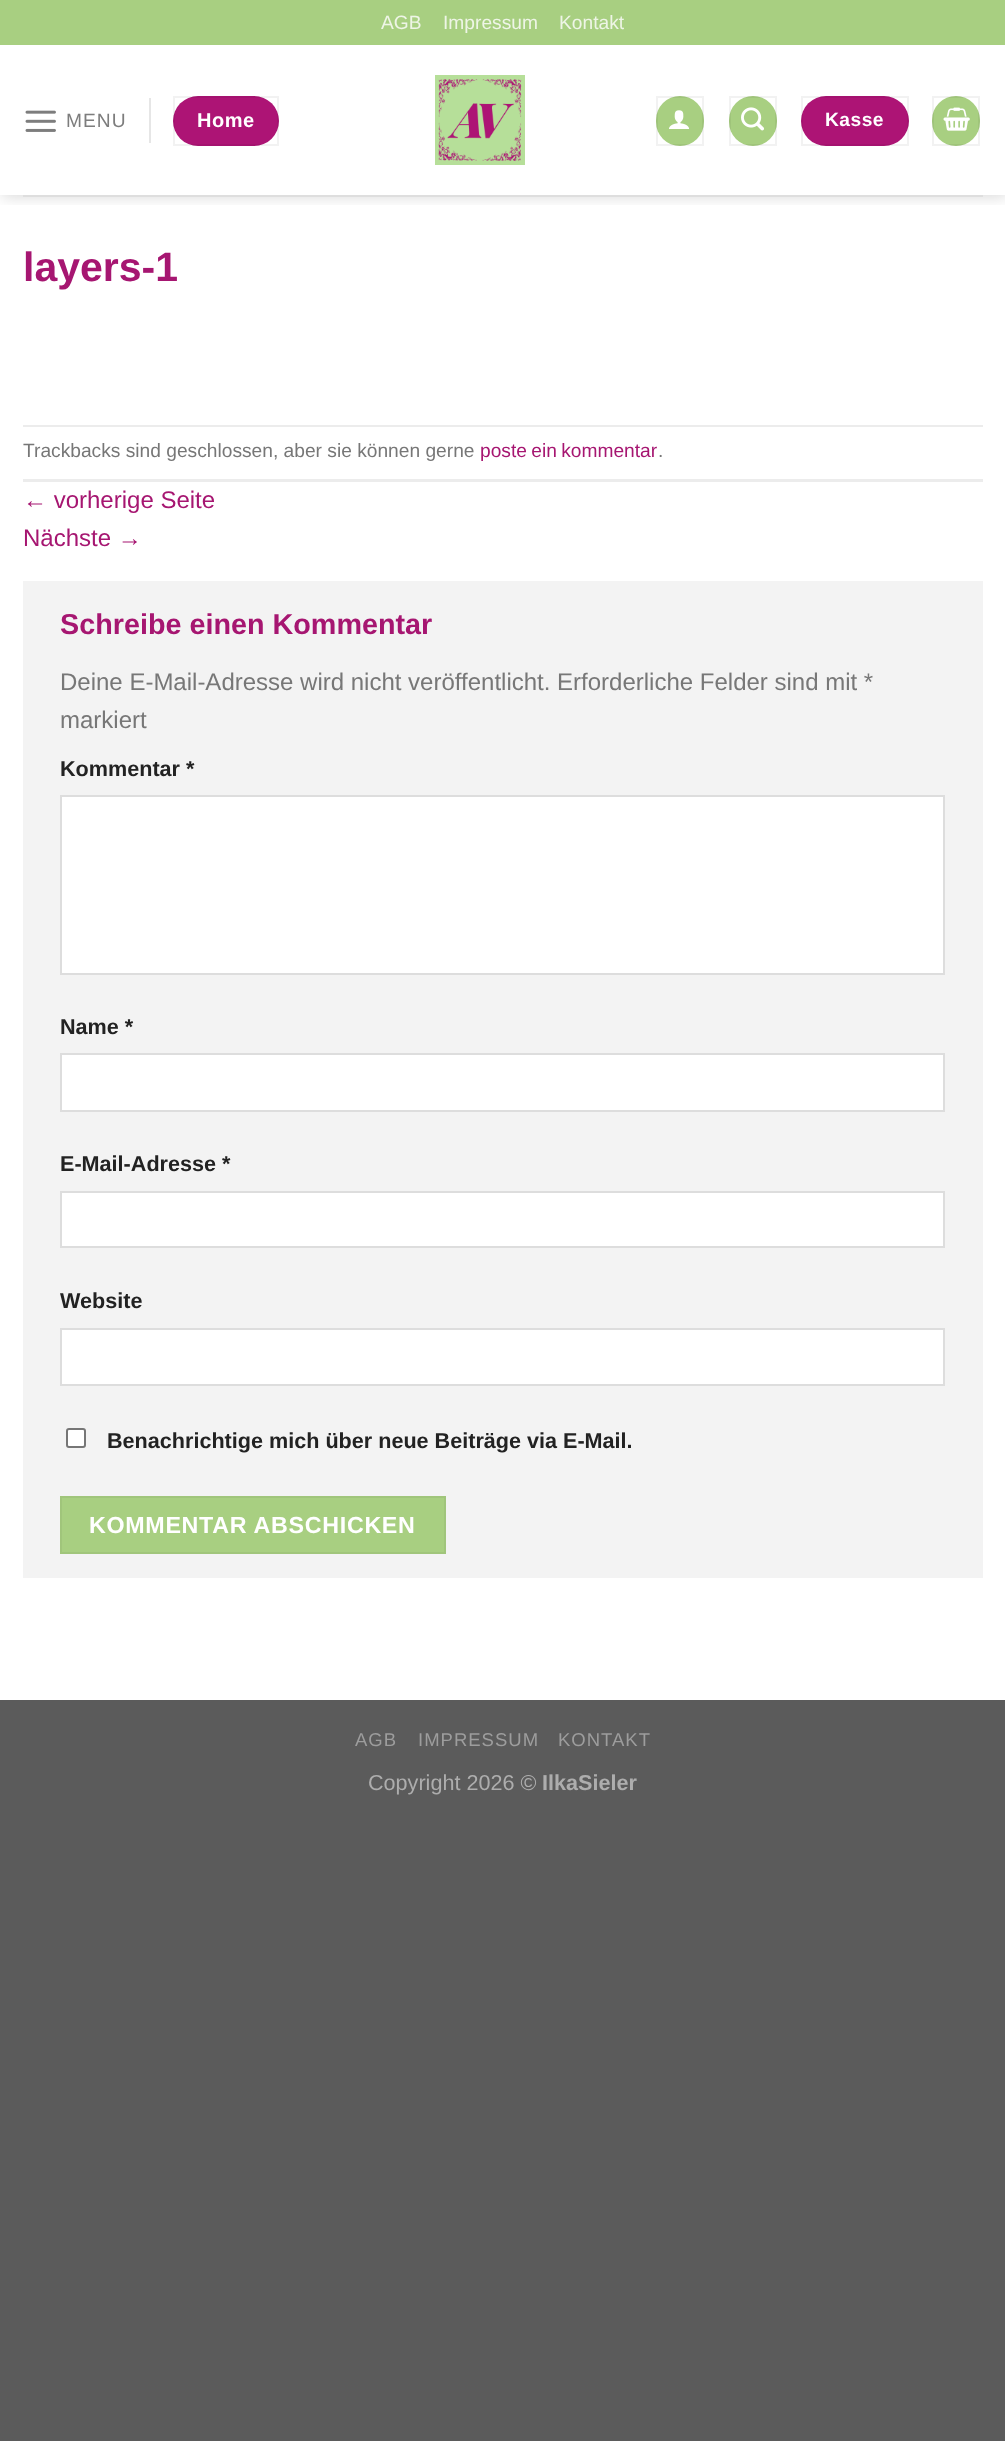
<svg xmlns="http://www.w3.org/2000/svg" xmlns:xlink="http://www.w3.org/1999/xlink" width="1005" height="2441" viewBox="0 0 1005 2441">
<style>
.cls-1{font:19.2px Liberation Sans;fill:#eef5e6}
.cls-2{font:19.2px Liberation Sans;letter-spacing:1px;fill:#7d7d7d}
.cls-3{font:bold 20px Liberation Sans;letter-spacing:0.5px;fill:#ffffff}
.cls-4{font:bold 19.2px Liberation Sans;letter-spacing:0.5px;fill:#ffffff}
.cls-5{font:bold 41px Liberation Sans;fill:#a61671}
.cls-6{font:19.2px Liberation Sans;fill:#777777}
.cls-7{font:19.2px Liberation Sans;fill:#a61671}
.cls-8{font:24px Liberation Sans;fill:#a61671}
.cls-9{font:bold 28.75px Liberation Sans;fill:#a61671}
.cls-10{font:24px Liberation Sans;fill:#777777}
.cls-11{font:bold 21.6px Liberation Sans;fill:#222222}
.cls-12{font:bold 23.25px Liberation Sans;letter-spacing:0.7px;fill:#ffffff}
.cls-13{font:18.5px Liberation Sans;letter-spacing:1px;fill:#9d9d9d}
.cls-14{font:21.6px Liberation Sans;fill:#adadad}
.cls-15{font:bold 21.6px Liberation Sans;fill:#adadad}
</style>
<defs>
<clipPath id="clip1"><rect x="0" y="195" width="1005" height="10"/></clipPath>
</defs>
<rect width="100%" height="100%" fill="#5b5b5b"/>
<rect fill="#ffffff" x="0" y="45" width="1005" height="1655"/>
<g clip-path="url(#clip1)">
<rect fill="#000000" fill-opacity="0.15" filter="blur(7.5px)" x="2" y="2" width="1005" height="195"/>
</g>
<rect fill="#a8cf81" x="0" y="0" width="1005" height="45"/>
<image xlink:href="image0.png" x="25" y="110" width="31" height="22"/>
<rect fill="#e6e6e6" x="149" y="98" width="2" height="45"/>
<rect fill="#ad1475" x="173" y="96" width="106" height="50" rx="25"/>
<rect fill="none" stroke="#000000" stroke-opacity="0.05" stroke-width="2" x="174" y="97" width="104" height="48"/>
<image xlink:href="image1.png" x="435" y="75" width="90" height="90"/>
<rect fill="#a8cf81" x="656" y="96" width="48" height="50" rx="24"/>
<rect fill="none" stroke="#000000" stroke-opacity="0.05" stroke-width="2" x="657" y="97" width="46" height="48"/>
<image xlink:href="image2.png" x="669" y="110" width="21" height="19"/>
<rect fill="#a8cf81" x="729" y="96" width="48" height="50" rx="24"/>
<rect fill="none" stroke="#000000" stroke-opacity="0.05" stroke-width="2" x="730" y="97" width="46" height="48"/>
<image xlink:href="image3.png" x="741" y="107" width="23" height="24"/>
<rect fill="#ad1475" x="801" y="96" width="108" height="50" rx="25"/>
<rect fill="none" stroke="#000000" stroke-opacity="0.05" stroke-width="2" x="802" y="97" width="106" height="48"/>
<rect fill="#a8cf81" x="932" y="96" width="48" height="50" rx="24"/>
<rect fill="none" stroke="#000000" stroke-opacity="0.05" stroke-width="2" x="933" y="97" width="46" height="48"/>
<image xlink:href="image4.png" x="943" y="107" width="27" height="24"/>
<rect fill="#dedede" x="23" y="195" width="960" height="2"/>
<rect fill="#ececec" x="23" y="425" width="960" height="2"/>
<rect fill="#ececec" x="23" y="479" width="960" height="3"/>
<rect fill="#f3f3f3" x="23" y="581" width="960" height="997"/>
<rect fill="#ffffff" stroke="#dddddd" stroke-width="2" x="61" y="796" width="883" height="178"/>
<rect fill="#ffffff" stroke="#dddddd" stroke-width="2" x="61" y="1054" width="883" height="57"/>
<rect fill="#ffffff" stroke="#dddddd" stroke-width="2" x="61" y="1192" width="883" height="55"/>
<rect fill="#ffffff" stroke="#dddddd" stroke-width="2" x="61" y="1329" width="883" height="56"/>
<rect fill="#ffffff" stroke="#767676" stroke-width="2" x="67" y="1429" width="18" height="18" rx="2"/>
<rect fill="#a8cf81" stroke="#a0c57b" stroke-width="2" x="61" y="1497" width="384" height="56"/>
<text class="cls-1" x="381" y="29">AGB</text>
<text class="cls-1" x="443" y="29">Impressum</text>
<text class="cls-1" x="559" y="29">Kontakt</text>
<text class="cls-2" x="66" y="127">MENU</text>
<text class="cls-3" x="197" y="127">Home</text>
<text class="cls-4" x="825" y="126">Kasse</text>
<text class="cls-5" x="23" y="281">layers-1</text>
<text class="cls-6" x="23" y="457">Trackbacks sind geschlossen, aber sie können gerne</text>
<text class="cls-7" x="480" y="457" word-spacing="-1">poste ein kommentar</text>
<text class="cls-6" x="658" y="457">.</text>
<text class="cls-8"><tspan x="23" y="508">← vorherige Seite</tspan><tspan x="23" y="546">Nächste →</tspan></text>
<text class="cls-9" x="60" y="634">Schreibe einen Kommentar</text>
<text class="cls-10"><tspan x="60" y="690">Deine E-Mail-Adresse wird nicht veröffentlicht. Erforderliche Felder sind mit *</tspan><tspan x="60" y="728">markiert</tspan></text>
<text class="cls-11" x="60" y="776">Kommentar *</text>
<text class="cls-11" x="60" y="1034">Name *</text>
<text class="cls-11" x="60" y="1171">E-Mail-Adresse *</text>
<text class="cls-11" x="60" y="1308">Website</text>
<text class="cls-11" x="107" y="1448">Benachrichtige mich über neue Beiträge via E-Mail.</text>
<text class="cls-12" x="89" y="1533">KOMMENTAR ABSCHICKEN</text>
<text class="cls-13" x="355" y="1746">AGB</text>
<text class="cls-13" x="418" y="1746">IMPRESSUM</text>
<text class="cls-13" x="558" y="1746">KONTAKT</text>
<text class="cls-14" x="368" y="1790">Copyright 2026 ©</text>
<text class="cls-15" x="542" y="1790">IlkaSieler</text>
</svg>
